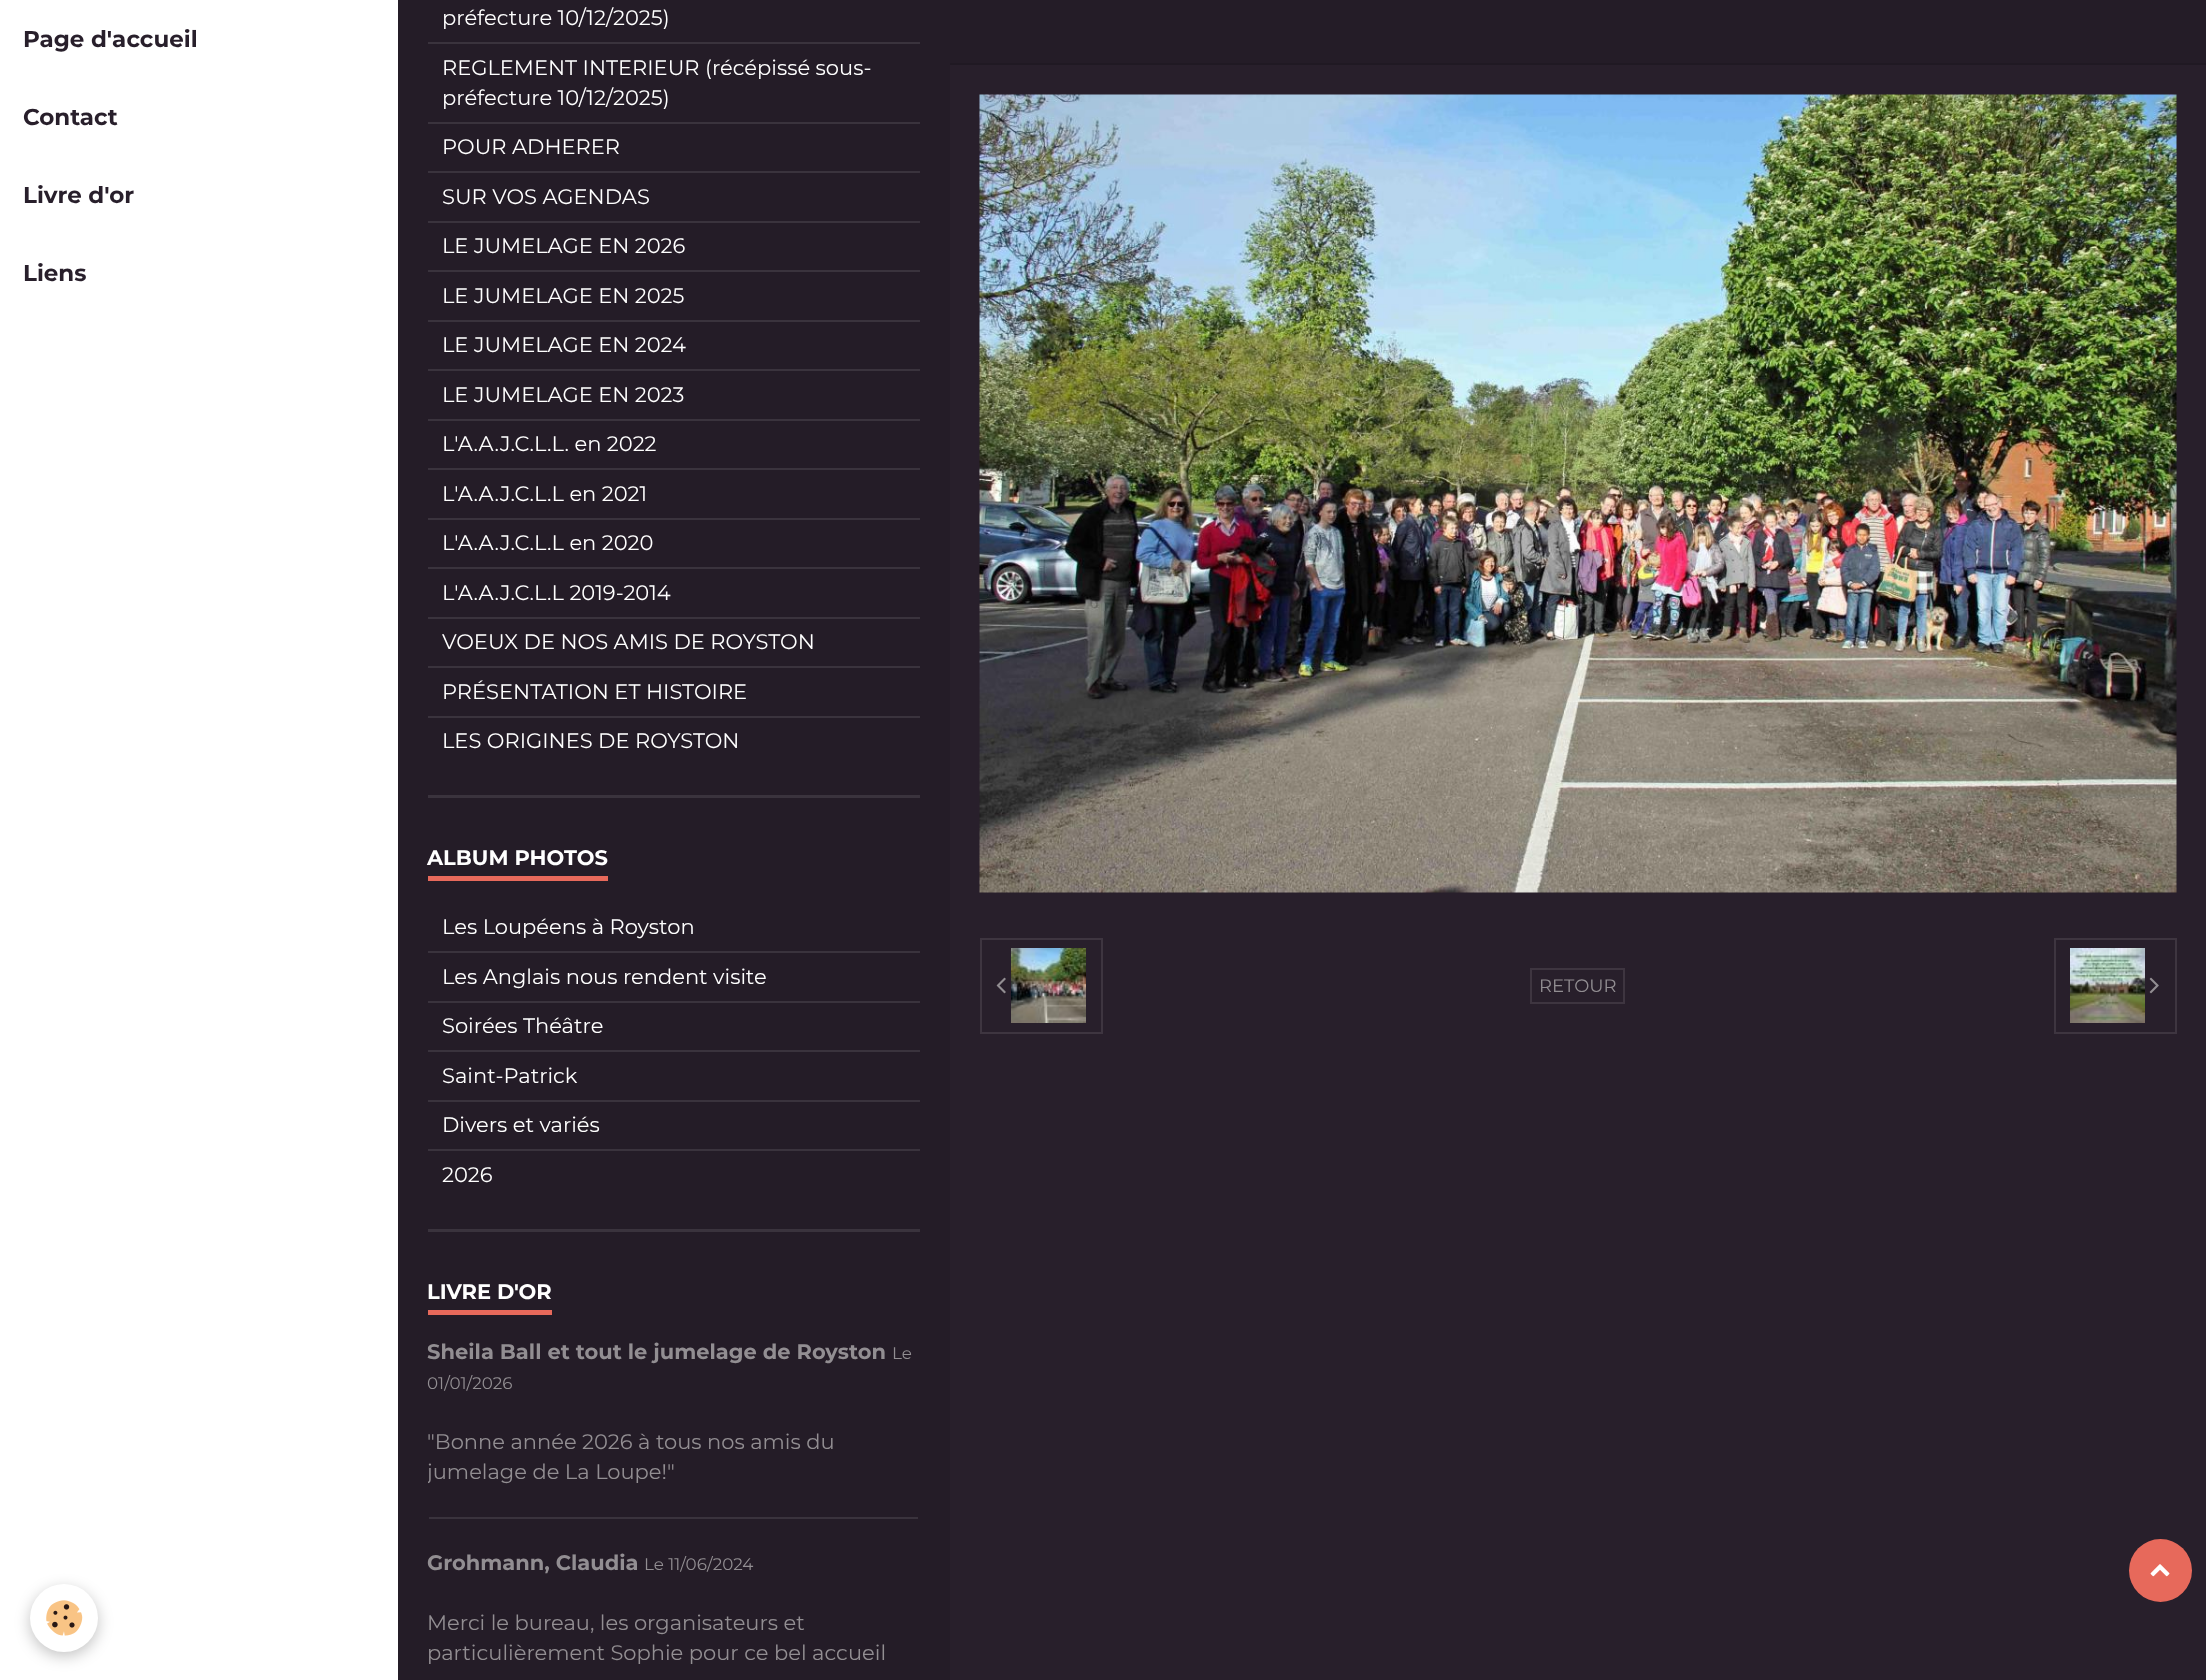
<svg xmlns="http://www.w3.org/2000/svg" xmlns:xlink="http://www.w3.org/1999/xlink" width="2206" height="1680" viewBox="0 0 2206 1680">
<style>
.cls-1{font:100 23px 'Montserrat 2';fill:#281f2b}
.cls-2{font:100 21px Montserrat;fill:#ffffff}
.cls-3{font:100 21px 'Montserrat 2';fill:#ffffff}
.cls-4{font:100 21px 'Montserrat 2';fill:#928e92}
.cls-5{font:100 16.75px Montserrat;fill:#928e92}
.cls-6{font:100 21px Montserrat;fill:#928e92}
.cls-7{font:100 18px Montserrat;fill:#928e92}
</style>
<defs>
<clipPath id="clip1"><rect x="428" y="1427" width="492" height="60"/></clipPath>
</defs>
<rect width="100%" height="100%" fill="#281f2b"/>
<rect fill="#ffffff" x="0" y="0" width="398" height="1680"/>
<rect fill="#241c27" x="398" y="0" width="552" height="1680"/>
<rect fill="#3a333d" x="428" y="42" width="492" height="2"/>
<rect fill="#3a333d" x="428" y="122" width="492" height="2"/>
<rect fill="#3a333d" x="428" y="171" width="492" height="2"/>
<rect fill="#3a333d" x="428" y="221" width="492" height="2"/>
<rect fill="#3a333d" x="428" y="270" width="492" height="2"/>
<rect fill="#3a333d" x="428" y="320" width="492" height="2"/>
<rect fill="#3a333d" x="428" y="369" width="492" height="2"/>
<rect fill="#3a333d" x="428" y="419" width="492" height="2"/>
<rect fill="#3a333d" x="428" y="468" width="492" height="2"/>
<rect fill="#3a333d" x="428" y="518" width="492" height="2"/>
<rect fill="#3a333d" x="428" y="567" width="492" height="2"/>
<rect fill="#3a333d" x="428" y="617" width="492" height="2"/>
<rect fill="#3a333d" x="428" y="666" width="492" height="2"/>
<rect fill="#3a333d" x="428" y="716" width="492" height="2"/>
<rect fill="#3a333d" x="428" y="795" width="492" height="3"/>
<rect fill="#e7695b" x="428" y="876" width="180" height="5"/>
<rect fill="#3a333d" x="428" y="951" width="492" height="2"/>
<rect fill="#3a333d" x="428" y="1001" width="492" height="2"/>
<rect fill="#3a333d" x="428" y="1050" width="492" height="2"/>
<rect fill="#3a333d" x="428" y="1100" width="492" height="2"/>
<rect fill="#3a333d" x="428" y="1149" width="492" height="2"/>
<rect fill="#3a333d" x="428" y="1229" width="492" height="3"/>
<rect fill="#e7695b" x="428" y="1310" width="124" height="5"/>
<rect fill="#3a333d" x="429" y="1517" width="489" height="2"/>
<rect fill="#241c27" x="950" y="0" width="1256" height="63"/>
<rect fill="#201923" x="950" y="63" width="1256" height="2"/>
<image xlink:href="image0.png" x="979" y="94" width="1198" height="799"/>
<rect fill="none" stroke="#3e3540" stroke-width="2" x="981" y="939" width="121" height="94"/>
<image xlink:href="image1.png" x="996" y="977" width="10" height="17"/>
<image xlink:href="image2.png" x="1011" y="948" width="75" height="75"/>
<rect fill="none" stroke="#3e3540" stroke-width="2" x="1531" y="969" width="93" height="34"/>
<rect fill="none" stroke="#3e3540" stroke-width="2" x="2055" y="939" width="121" height="94"/>
<image xlink:href="image3.png" x="2070" y="948" width="75" height="75"/>
<image xlink:href="image4.png" x="2149" y="977" width="10" height="17"/>
<circle fill="#e7695b" cx="2160.5" cy="1570.5" r="31.5"/>
<image xlink:href="image5.png" x="2150" y="1564" width="20" height="13"/>
<rect fill="#000000" fill-opacity="0.24" filter="blur(7.5px)" x="30" y="1589" width="68" height="67" rx="33.5"/>
<circle fill="#ffffff" cx="64" cy="1618" r="34"/>
<image xlink:href="image6.png" x="46" y="1600" width="37" height="36"/>
<text class="cls-1" x="23" y="47">Page d'accueil</text>
<text class="cls-1" x="23" y="125">Contact</text>
<text class="cls-1" x="23" y="203">Livre d'or</text>
<text class="cls-1" x="23" y="281">Liens</text>
<text class="cls-2" x="442" y="25">préfecture 10/12/2025)</text>
<text class="cls-2"><tspan x="442" y="75">REGLEMENT INTERIEUR (récépissé sous-</tspan><tspan x="442" y="105">préfecture 10/12/2025)</tspan></text>
<text class="cls-2" x="442" y="154">POUR ADHERER</text>
<text class="cls-2" x="442" y="204">SUR VOS AGENDAS</text>
<text class="cls-2" x="442" y="253">LE JUMELAGE EN 2026</text>
<text class="cls-2" x="442" y="303">LE JUMELAGE EN 2025</text>
<text class="cls-2" x="442" y="352">LE JUMELAGE EN 2024</text>
<text class="cls-2" x="442" y="402">LE JUMELAGE EN 2023</text>
<text class="cls-2" x="442" y="451">L'A.A.J.C.L.L. en 2022</text>
<text class="cls-2" x="442" y="501">L'A.A.J.C.L.L en 2021</text>
<text class="cls-2" x="442" y="550">L'A.A.J.C.L.L en 2020</text>
<text class="cls-2" x="442" y="600">L'A.A.J.C.L.L 2019-2014</text>
<text class="cls-2" x="442" y="649">VOEUX DE NOS AMIS DE ROYSTON</text>
<text class="cls-2" x="442" y="699">PRÉSENTATION ET HISTOIRE</text>
<text class="cls-2" x="442" y="748">LES ORIGINES DE ROYSTON</text>
<text class="cls-3" x="427" y="865">ALBUM PHOTOS</text>
<text class="cls-2" x="442" y="934">Les Loupéens à Royston</text>
<text class="cls-2" x="442" y="984">Les Anglais nous rendent visite</text>
<text class="cls-2" x="442" y="1033">Soirées Théâtre</text>
<text class="cls-2" x="442" y="1083">Saint-Patrick</text>
<text class="cls-2" x="442" y="1132">Divers et variés</text>
<text class="cls-2" x="442" y="1182">2026</text>
<text class="cls-3" x="427" y="1299">LIVRE D'OR</text>
<text class="cls-4" x="427" y="1359">Sheila Ball et tout le jumelage de Royston</text>
<text class="cls-5" x="892" y="1359">Le</text>
<text class="cls-5" x="427" y="1389">01/01/2026</text>
<text class="cls-6" x="427" y="1449">"Bonne année 2026 à tous nos amis du</text>
<g clip-path="url(#clip1)">
<text class="cls-6" x="427" y="1479">jumelage de La Loupe!"</text>
</g>
<text class="cls-4" x="427" y="1570">Grohmann, Claudia</text>
<text class="cls-5" x="644" y="1570">Le 11/06/2024</text>
<text class="cls-6"><tspan x="427" y="1630">Merci le bureau, les organisateurs et</tspan><tspan x="427" y="1660">particulièrement Sophie pour ce bel accueil</tspan></text>
<text class="cls-7" x="1539" y="992">RETOUR</text>
</svg>
